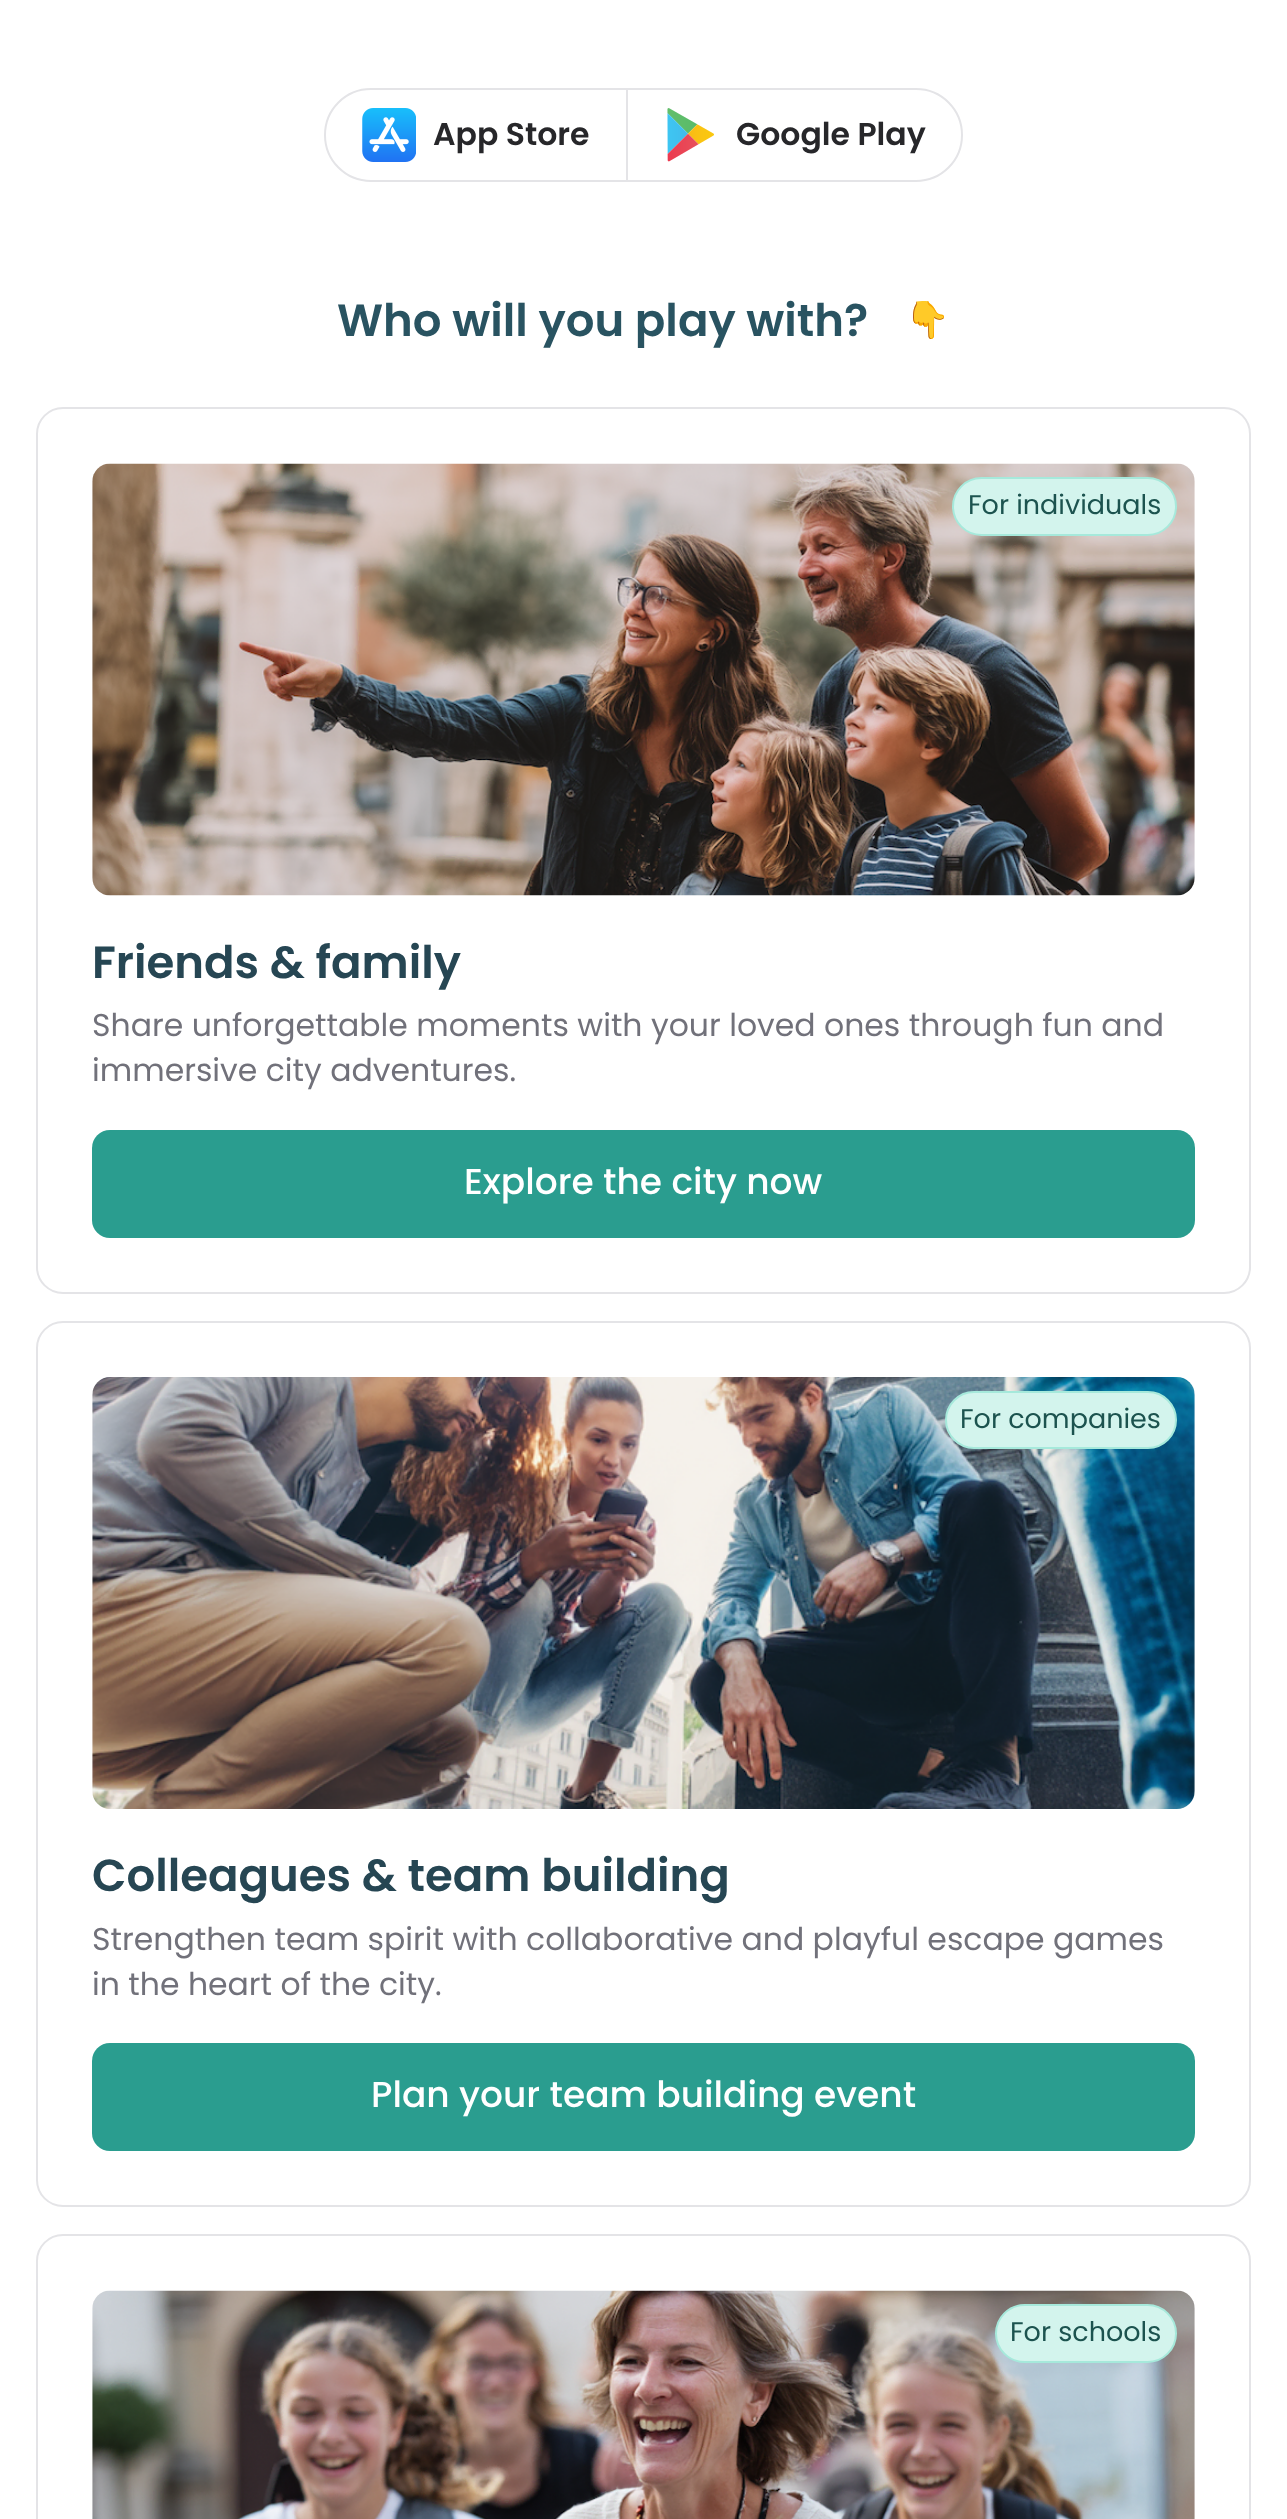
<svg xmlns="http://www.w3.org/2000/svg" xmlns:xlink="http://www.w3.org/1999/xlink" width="1287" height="2519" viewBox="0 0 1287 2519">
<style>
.cls-1{font:600 31.5px Poppins;fill:#27272a}
.cls-2{font:600 45px Poppins;fill:#295361}
.cls-3{font:36px Noto Color Emoji;fill:#52525b}
.cls-4{font:27px Poppins;fill:#1c534f}
.cls-5{font:600 45px Poppins;fill:#264653}
.cls-6{font:31.5px Poppins;fill:#71717a}
.cls-7{font:500 36px Poppins;fill:#ffffff}
</style>
<rect width="100%" height="100%" fill="#ffffff"/>
<path fill="none" stroke="#e4e4e7" stroke-width="2" d="M371 89H627V181H371C345.5 181 325 160.5 325 135C325 109.5 345.5 89 371 89Z"/>
<image xlink:href="image0.png" x="362" y="108" width="54" height="54"/>
<path fill="#ffffff" stroke="#e4e4e7" stroke-width="2" d="M627 89H916C941.5 89 962 109.5 962 135C962 160.5 941.5 181 916 181H627Z"/>
<image xlink:href="image1.png" x="667" y="108" width="47" height="54"/>
<rect fill="none" stroke="#e4e4e7" stroke-width="2" x="37" y="408" width="1213" height="885" rx="26"/>
<image xlink:href="image2.png" x="92" y="463" width="1103" height="433"/>
<rect fill="#d3f4ed" stroke="#a6e9db" stroke-width="2" x="953" y="478" width="223" height="57" rx="28.5"/>
<rect fill="#2a9d8f" x="92" y="1130" width="1103" height="108" rx="18"/>
<rect fill="none" stroke="#e4e4e7" stroke-width="2" x="37" y="1322" width="1213" height="884" rx="26"/>
<image xlink:href="image3.png" x="92" y="1377" width="1103" height="432"/>
<rect fill="#d3f4ed" stroke="#a6e9db" stroke-width="2" x="946" y="1392" width="230" height="56" rx="28"/>
<rect fill="#2a9d8f" x="92" y="2043" width="1103" height="108" rx="18"/>
<rect fill="none" stroke="#e4e4e7" stroke-width="2" x="37" y="2235" width="1213" height="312" rx="26"/>
<image xlink:href="image4.png" x="92" y="2290" width="1103" height="229"/>
<rect fill="#d3f4ed" stroke="#a6e9db" stroke-width="2" x="996" y="2305" width="180" height="57" rx="28.5"/>
<text class="cls-1" x="433" y="145">App Store</text>
<text class="cls-1" x="736" y="145">Google Play</text>
<text class="cls-2" x="337" y="336">Who will you play with?</text>
<text class="cls-3" x="905" y="332">👇</text>
<text class="cls-4" x="968" y="514">For individuals</text>
<text class="cls-5" x="92" y="978">Friends &amp; family</text>
<text class="cls-6"><tspan x="92" y="1036">Share unforgettable moments with your loved ones through fun and</tspan><tspan x="92" y="1081">immersive city adventures.</tspan></text>
<text class="cls-7" x="464" y="1194">Explore the city now</text>
<text class="cls-4" x="960" y="1428">For companies</text>
<text class="cls-5" x="92" y="1891">Colleagues &amp; team building</text>
<text class="cls-6"><tspan x="92" y="1950">Strengthen team spirit with collaborative and playful escape games</tspan><tspan x="92" y="1995">in the heart of the city.</tspan></text>
<text class="cls-7" x="371" y="2107">Plan your team building event</text>
<text class="cls-4" x="1010" y="2341">For schools</text>
</svg>
